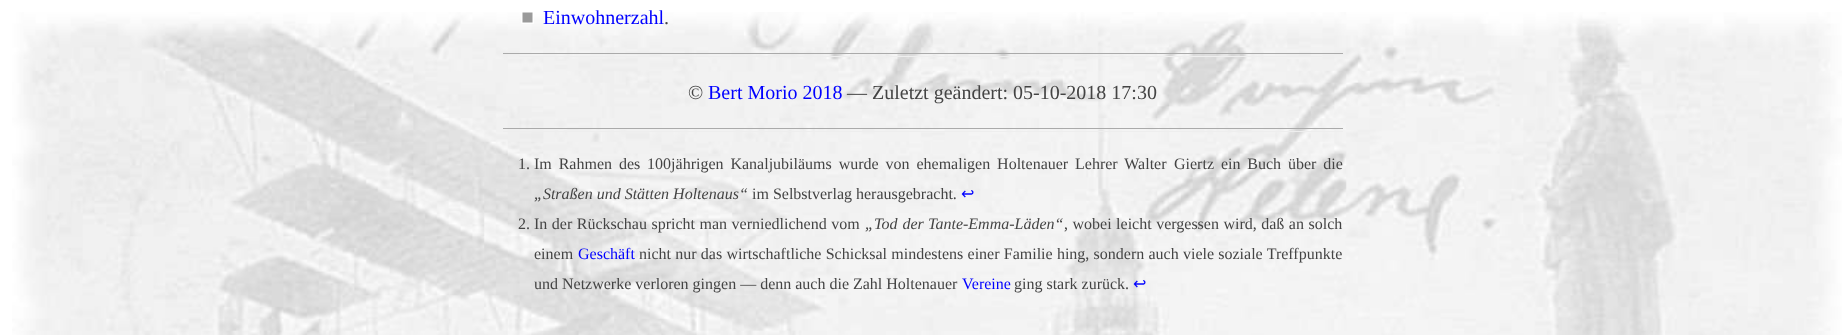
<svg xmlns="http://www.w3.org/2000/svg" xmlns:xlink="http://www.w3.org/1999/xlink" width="1845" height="335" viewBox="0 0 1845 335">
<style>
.cls-1{font:20px Liberation Serif;fill:#0000ff}
.cls-2{font:20px Liberation Serif;fill:#444444}
.cls-3{font:16px Liberation Serif;fill:#444444}
.cls-4{font:italic 16px Liberation Serif;fill:#444444}
.cls-5{font:16px DejaVu Sans;fill:#0000ff}
.cls-6{font:16px Liberation Serif;fill:#0000ff}
</style>
<rect width="100%" height="100%" fill="#ffffff"/>
<image xlink:href="image0.png" x="12" y="12" width="1830" height="323"/>
<image xlink:href="image1.png" x="521" y="12" width="13" height="12"/>
<rect fill="#aaaaaa" x="503" y="53" width="840" height="1"/>
<rect fill="#eeeeee" x="519" y="56" width="803" height="1"/>
<rect fill="#aaaaaa" x="503" y="128" width="840" height="1"/>
<rect fill="#eeeeee" x="503" y="131" width="840" height="1"/>
<text class="cls-1" x="543" y="24">Einwohnerzahl</text>
<text class="cls-2" x="664" y="24">.</text>
<text class="cls-2" x="688" y="99">©</text>
<text class="cls-1" x="708" y="99">Bert Morio 2018</text>
<text class="cls-2" x="847" y="99">— Zuletzt geändert: 05-10-2018 17:30</text>
<text class="cls-3" x="518" y="169">1.</text>
<text class="cls-3" x="534" y="169" word-spacing="2.9">Im Rahmen des 100jährigen Kanaljubiläums wurde von ehemaligen Holtenauer Lehrer Walter</text>
<text class="cls-3" x="1174" y="169" word-spacing="2.9">Giertz ein Buch über die</text>
<text class="cls-4" x="534" y="199">„Straßen und Stätten Holtenaus“</text>
<text class="cls-3" x="752" y="199">im Selbstverlag herausgebracht.</text>
<text class="cls-5" x="961" y="199">↩</text>
<text class="cls-3" x="518" y="229">2.</text>
<text class="cls-3" x="534" y="229" word-spacing="0.5">In der Rückschau spricht man verniedlichend vom</text>
<text class="cls-4" x="865" y="229">„</text>
<text class="cls-4" x="874" y="229" word-spacing="1">Tod der</text>
<text class="cls-4" x="928" y="229">Tante-Emma-Läden“</text>
<text class="cls-3" x="1064" y="229" word-spacing="0.5">, wobei leicht vergessen wird, daß an solch</text>
<text class="cls-3" x="534" y="259">einem</text>
<text class="cls-6" x="578" y="259">Geschäft</text>
<text class="cls-3" x="639" y="259" word-spacing="0.25">nicht nur das wirtschaftliche Schicksal mindestens einer Familie hing, sondern auch viele soziale Treffpunkte</text>
<text class="cls-3" x="534" y="289">und Netzwerke verloren gingen — denn auch die Zahl Holtenauer</text>
<text class="cls-6" x="962" y="289">Vereine</text>
<text class="cls-3" x="1014" y="289">ging stark zurück.</text>
<text class="cls-5" x="1133" y="289">↩</text>
</svg>
